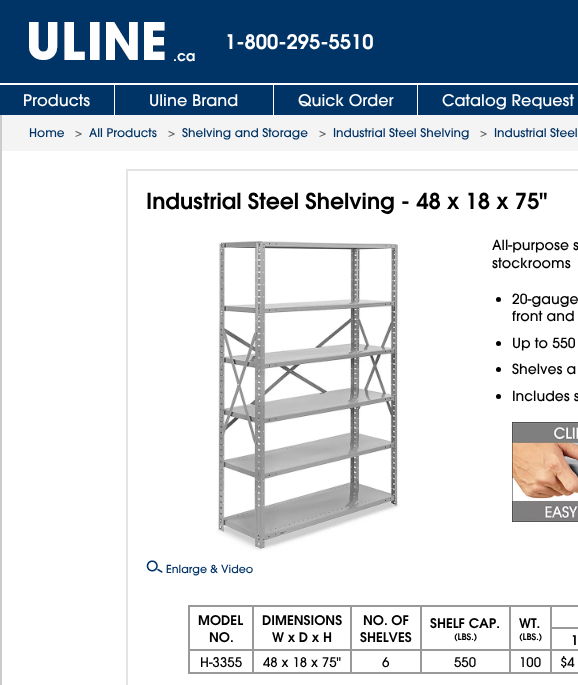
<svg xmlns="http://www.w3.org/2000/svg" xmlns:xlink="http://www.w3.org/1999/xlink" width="578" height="685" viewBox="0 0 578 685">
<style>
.cls-1{font:600 20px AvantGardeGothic;fill:#ffffff}
.cls-2{font:600 14px AvantGardeGothic;fill:#ffffff}
.cls-3{font:500 16px AvantGardeGothic;fill:#ffffff}
.cls-4{font:500 12px AvantGardeGothic;fill:#003366}
.cls-5{font:500 12px AvantGardeGothic;fill:#666666}
.cls-6{font:600 22px AvantGardeGothic;fill:#000000}
.cls-7{font:500 14px AvantGardeGothic;fill:#000000}
.cls-8{font:500 11px AvantGardeGothic;fill:#003366}
.cls-9{font:600 13.25px AvantGardeGothic;fill:#000000}
.cls-10{font:600 9px AvantGardeGothic;fill:#000000}
.cls-11{font:500 13.25px AvantGardeGothic;fill:#000000}
</style>
<rect width="100%" height="100%" fill="#ffffff"/>
<rect fill="#003366" x="0" y="0" width="578" height="115"/>
<image xlink:href="image0.png" x="29" y="22" width="136" height="38"/>
<rect fill="#ffffff" x="0" y="83" width="578" height="2"/>
<rect fill="#ffffff" x="114" y="85" width="1" height="30"/>
<rect fill="#ffffff" x="273" y="85" width="1" height="30"/>
<rect fill="#ffffff" x="417" y="85" width="1" height="30"/>
<rect fill="#cccccc" x="0" y="115" width="2" height="570"/>
<rect fill="#f4f4f4" x="2" y="115" width="576" height="36"/>
<rect fill="none" stroke="#e5e4e4" stroke-width="2" x="127" y="170" width="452" height="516"/>
<circle fill="#000000" cx="498.5" cy="299.5" r="2.5"/>
<circle fill="#000000" cx="498.5" cy="343.5" r="2.5"/>
<circle fill="#000000" cx="498.5" cy="369.5" r="2.5"/>
<circle fill="#000000" cx="498.5" cy="396.5" r="2.5"/>
<image xlink:href="image1.png" x="512" y="422" width="66" height="100"/>
<image xlink:href="image2.png" x="216" y="240" width="184" height="311"/>
<image xlink:href="image3.png" x="146" y="560" width="17" height="13"/>
<rect fill="none" stroke="#999999" x="188.5" y="605.5" width="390" height="68"/>
<rect fill="none" stroke="#999999" x="189.5" y="606.5" width="63" height="43"/>
<rect fill="none" stroke="#999999" x="253.5" y="606.5" width="97" height="43"/>
<rect fill="none" stroke="#999999" x="351.5" y="606.5" width="69" height="43"/>
<rect fill="none" stroke="#999999" x="421.5" y="606.5" width="88" height="43"/>
<rect fill="none" stroke="#999999" x="510.5" y="606.5" width="40" height="43"/>
<rect fill="none" stroke="#999999" x="551.5" y="606.5" width="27" height="21"/>
<rect fill="none" stroke="#999999" x="551.5" y="628.5" width="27" height="21"/>
<rect fill="none" stroke="#999999" x="189.5" y="650.5" width="63" height="22"/>
<rect fill="none" stroke="#999999" x="253.5" y="650.5" width="97" height="22"/>
<rect fill="none" stroke="#999999" x="351.5" y="650.5" width="69" height="22"/>
<rect fill="none" stroke="#999999" x="421.5" y="650.5" width="88" height="22"/>
<rect fill="none" stroke="#999999" x="510.5" y="650.5" width="40" height="22"/>
<rect fill="none" stroke="#999999" x="551.5" y="650.5" width="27" height="22"/>
<text class="cls-1" x="225" y="49">1-800-295-5510</text>
<text class="cls-2" x="173" y="61">.ca</text>
<text class="cls-3" x="23" y="106">Products</text>
<text class="cls-3" x="149" y="106">Uline Brand</text>
<text class="cls-3" x="298" y="106">Quick Order</text>
<text class="cls-3" x="442" y="106">Catalog Request</text>
<text class="cls-4" x="29" y="137">Home</text>
<text class="cls-5" x="75" y="137">&gt;</text>
<text class="cls-4" x="89" y="137">All Products</text>
<text class="cls-5" x="168" y="137">&gt;</text>
<text class="cls-4" x="182" y="137">Shelving and Storage</text>
<text class="cls-5" x="319" y="137">&gt;</text>
<text class="cls-4" x="333" y="137">Industrial Steel Shelving</text>
<text class="cls-5" x="480" y="137">&gt;</text>
<text class="cls-4" x="494" y="137">Industrial Steel</text>
<text class="cls-6" x="146" y="209">Industrial Steel Shelving - 48 x 18 x 75"</text>
<text class="cls-7"><tspan x="492" y="250">All-purpose s</tspan><tspan x="492" y="268">stockrooms</tspan></text>
<text class="cls-7"><tspan x="512" y="304">20-gauge</tspan><tspan x="512" y="321">front and</tspan><tspan x="512" y="348">Up to 550</tspan><tspan x="512" y="374">Shelves a</tspan><tspan x="512" y="401">Includes s</tspan></text>
<text class="cls-8" x="166" y="573">Enlarge &amp; Video</text>
<text class="cls-9" x="198" y="625">MODEL</text>
<text class="cls-9" x="209" y="642">NO.</text>
<text class="cls-9" x="262" y="625">DIMENSIONS</text>
<text class="cls-9" x="272" y="642">W x D x H</text>
<text class="cls-9" x="363" y="625">NO. OF</text>
<text class="cls-9" x="360" y="642">SHELVES</text>
<text class="cls-9" x="430" y="628">SHELF CAP.</text>
<text class="cls-10" x="454" y="640">(LBS.)</text>
<text class="cls-9" x="519" y="628">WT.</text>
<text class="cls-10" x="519" y="640">(LBS.)</text>
<text class="cls-9" x="571" y="645">1</text>
<text class="cls-11" x="200" y="667">H-3355</text>
<text class="cls-11" x="263" y="667">48 x 18 x 75"</text>
<text class="cls-11" x="382" y="667">6</text>
<text class="cls-11" x="454" y="667">550</text>
<text class="cls-11" x="519" y="667">100</text>
<text class="cls-11" x="560" y="667">$4</text>
</svg>
